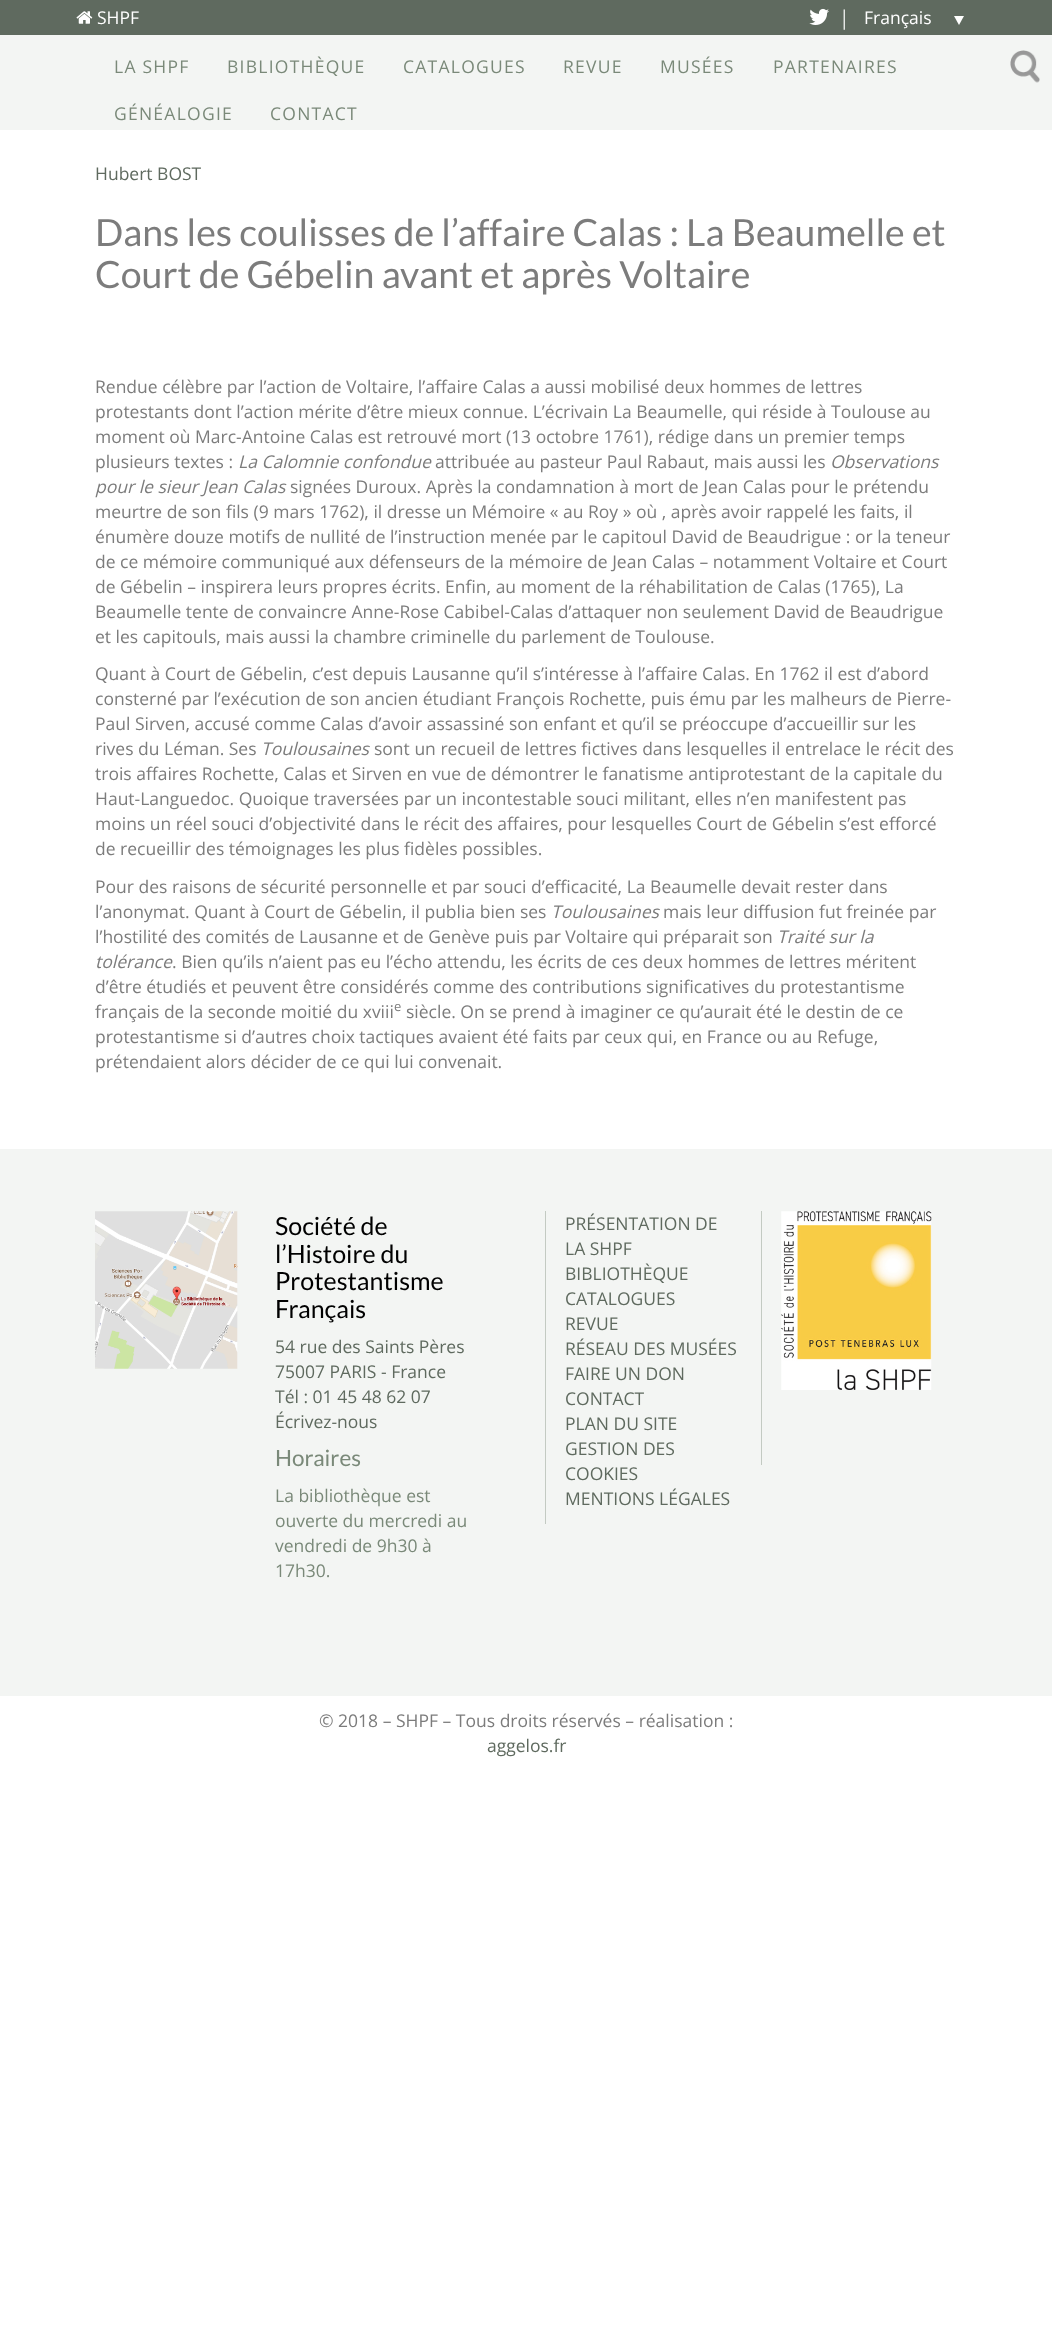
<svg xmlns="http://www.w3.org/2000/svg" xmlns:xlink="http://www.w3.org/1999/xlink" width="1052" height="2333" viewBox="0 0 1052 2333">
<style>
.cls-1{font:17.5px Open Sans;fill:#ffffff}
.cls-2{font:22.5px Liberation Serif;fill:#ffffff}
.cls-3{font:17.5px Open Sans;letter-spacing:1.25px;fill:#7a8979}
.cls-4{font:17.5px Open Sans;fill:#5f6a5f}
.cls-5{font:37.5px Lato;fill:#7c7c7c}
.cls-6{font:17.5px Open Sans;fill:#7c7c7c}
.cls-7{font:italic 17.5px Open Sans;fill:#7c7c7c}
.cls-8{font:13px Open Sans;fill:#7c7c7c}
.cls-9{font:25px Lato;fill:#000000}
.cls-10{font:22.5px Lato;fill:#7a8979}
.cls-11{font:17.5px Open Sans;fill:#7a8979}
</style>
<rect width="100%" height="100%" fill="#ffffff"/>
<rect fill="#5f6a5f" x="0" y="0" width="1052" height="35"/>
<image xlink:href="image0.png" x="76" y="11" width="17" height="13"/>
<image xlink:href="image1.png" x="809" y="8" width="20" height="17"/>
<path fill="#ffffff" d="M954 16H964L959 25Z"/>
<rect fill="#f3f5f3" x="0" y="35" width="1052" height="95"/>
<image xlink:href="image2.png" x="1010" y="50" width="30" height="33"/>
<rect fill="#f3f5f3" x="0" y="1149" width="1052" height="547"/>
<image xlink:href="image3.png" x="95" y="1211" width="143" height="158"/>
<rect fill="#c3cac2" x="545" y="1211" width="1" height="313"/>
<rect fill="#c3cac2" x="761" y="1211" width="1" height="254"/>
<image xlink:href="image4.png" x="781" y="1211" width="151" height="179"/>
<text class="cls-1" x="97" y="24">SHPF</text>
<text class="cls-2" x="842" y="25">|</text>
<text class="cls-1" x="864" y="24">Français</text>
<text class="cls-3" x="114" y="73">LA SHPF</text>
<text class="cls-3" x="227" y="73">BIBLIOTHÈQUE</text>
<text class="cls-3" x="403" y="73">CATALOGUES</text>
<text class="cls-3" x="563" y="73">REVUE</text>
<text class="cls-3" x="660" y="73">MUSÉES</text>
<text class="cls-3" x="773" y="73">PARTENAIRES</text>
<text class="cls-3" x="114" y="120">GÉNÉALOGIE</text>
<text class="cls-3" x="270" y="120">CONTACT</text>
<text class="cls-4" x="95" y="180">Hubert BOST</text>
<text class="cls-5"><tspan x="95" y="246">Dans les coulisses de l’affaire Calas : La Beaumelle et</tspan><tspan x="95" y="288">Court de Gébelin avant et après Voltaire</tspan></text>
<text class="cls-6"><tspan x="95" y="393">Rendue célèbre par l’action de Voltaire, l’affaire Calas a aussi mobilisé deux hommes de lettres</tspan><tspan x="95" y="418">protestants dont l’action mérite d’être mieux connue. L’écrivain La Beaumelle, qui réside à Toulouse au</tspan><tspan x="95" y="443">moment où Marc-Antoine Calas est retrouvé mort (13 octobre 1761), rédige dans un premier temps</tspan><tspan x="95" y="468">plusieurs textes :</tspan></text>
<text class="cls-7" x="238" y="468">La Calomnie confondue</text>
<text class="cls-6" x="435" y="468">attribuée au pasteur Paul Rabaut, mais aussi les</text>
<text class="cls-7" x="830" y="468">Observations</text>
<text class="cls-7" x="95" y="493">pour le sieur Jean Calas</text>
<text class="cls-6" x="290" y="493">signées Duroux. Après la condamnation à mort de Jean Calas pour le prétendu</text>
<text class="cls-6"><tspan x="95" y="518">meurtre de son fils (9 mars 1762), il dresse un Mémoire « au Roy » où , après avoir rappelé les faits, il</tspan><tspan x="95" y="543">énumère douze motifs de nullité de l’instruction menée par le capitoul David de Beaudrigue : or la teneur</tspan><tspan x="95" y="568">de ce mémoire communiqué aux défenseurs de la mémoire de Jean Calas – notamment Voltaire et Court</tspan><tspan x="95" y="593">de Gébelin – inspirera leurs propres écrits. Enfin, au moment de la réhabilitation de Calas (1765), La</tspan><tspan x="95" y="618">Beaumelle tente de convaincre Anne-Rose Cabibel-Calas d’attaquer non seulement David de Beaudrigue</tspan><tspan x="95" y="643">et les capitouls, mais aussi la chambre criminelle du parlement de Toulouse.</tspan></text>
<text class="cls-6"><tspan x="95" y="680">Quant à Court de Gébelin, c’est depuis Lausanne qu’il s’intéresse à l’affaire Calas. En 1762 il est d’abord</tspan><tspan x="95" y="705">consterné par l’exécution de son ancien étudiant François Rochette, puis ému par les malheurs de Pierre-</tspan><tspan x="95" y="730">Paul Sirven, accusé comme Calas d’avoir assassiné son enfant et qu’il se préoccupe d’accueillir sur les</tspan><tspan x="95" y="755">rives du Léman. Ses</tspan></text>
<text class="cls-7" x="261" y="755">Toulousaines</text>
<text class="cls-6" x="374" y="755">sont un recueil de lettres fictives dans lesquelles il entrelace le récit des</text>
<text class="cls-6"><tspan x="95" y="780">trois affaires Rochette, Calas et Sirven en vue de démontrer le fanatisme antiprotestant de la capitale du</tspan><tspan x="95" y="805">Haut-Languedoc. Quoique traversées par un incontestable souci militant, elles n’en manifestent pas</tspan><tspan x="95" y="830">moins un réel souci d’objectivité dans le récit des affaires, pour lesquelles Court de Gébelin s’est efforcé</tspan><tspan x="95" y="855">de recueillir des témoignages les plus fidèles possibles.</tspan></text>
<text class="cls-6"><tspan x="95" y="893">Pour des raisons de sécurité personnelle et par souci d’efficacité, La Beaumelle devait rester dans</tspan><tspan x="95" y="918">l’anonymat. Quant à Court de Gébelin, il publia bien ses</tspan></text>
<text class="cls-7" x="551" y="918">Toulousaines</text>
<text class="cls-6" x="663" y="918">mais leur diffusion fut freinée par</text>
<text class="cls-6" x="95" y="943">l’hostilité des comités de Lausanne et de Genève puis par Voltaire qui préparait son</text>
<text class="cls-7" x="777" y="943">Traité sur la</text>
<text class="cls-7" x="95" y="968">tolérance</text>
<text class="cls-6" x="172" y="968">. Bien qu’ils n’aient pas eu l’écho attendu, les écrits de ces deux hommes de lettres méritent</text>
<text class="cls-6"><tspan x="95" y="993">d’être étudiés et peuvent être considérés comme des contributions significatives du protestantisme</tspan><tspan x="95" y="1018">français de la seconde moitié du xviii</tspan></text>
<text class="cls-8" x="394" y="1011">e</text>
<text class="cls-6" x="406" y="1018">siècle. On se prend à imaginer ce qu’aurait été le destin de ce</text>
<text class="cls-6"><tspan x="95" y="1043">protestantisme si d’autres choix tactiques avaient été faits par ceux qui, en France ou au Refuge,</tspan><tspan x="95" y="1068">prétendaient alors décider de ce qui lui convenait.</tspan></text>
<text class="cls-9"><tspan x="275" y="1235">Société de</tspan><tspan x="275" y="1263">l’Histoire du</tspan><tspan x="275" y="1290">Protestantisme</tspan><tspan x="275" y="1318">Français</tspan></text>
<text class="cls-4"><tspan x="275" y="1353">54 rue des Saints Pères</tspan><tspan x="275" y="1378">75007 PARIS - France</tspan><tspan x="275" y="1403">Tél : 01 45 48 62 07</tspan><tspan x="275" y="1428">Écrivez-nous</tspan></text>
<text class="cls-10" x="275" y="1466">Horaires</text>
<text class="cls-11"><tspan x="275" y="1502">La bibliothèque est</tspan><tspan x="275" y="1527">ouverte du mercredi au</tspan><tspan x="275" y="1552">vendredi de 9h30 à</tspan><tspan x="275" y="1577">17h30.</tspan></text>
<text class="cls-4"><tspan x="565" y="1230">PRÉSENTATION DE</tspan><tspan x="565" y="1255">LA SHPF</tspan><tspan x="565" y="1280">BIBLIOTHÈQUE</tspan><tspan x="565" y="1305">CATALOGUES</tspan><tspan x="565" y="1330">REVUE</tspan><tspan x="565" y="1355">RÉSEAU DES MUSÉES</tspan><tspan x="565" y="1380">FAIRE UN DON</tspan><tspan x="565" y="1405">CONTACT</tspan><tspan x="565" y="1430">PLAN DU SITE</tspan><tspan x="565" y="1455">GESTION DES</tspan><tspan x="565" y="1480">COOKIES</tspan><tspan x="565" y="1505">MENTIONS LÉGALES</tspan></text>
<text class="cls-6" x="319" y="1727">© 2018 – SHPF – Tous droits réservés – réalisation :</text>
<text class="cls-4" x="487" y="1752">aggelos.fr</text>
</svg>
